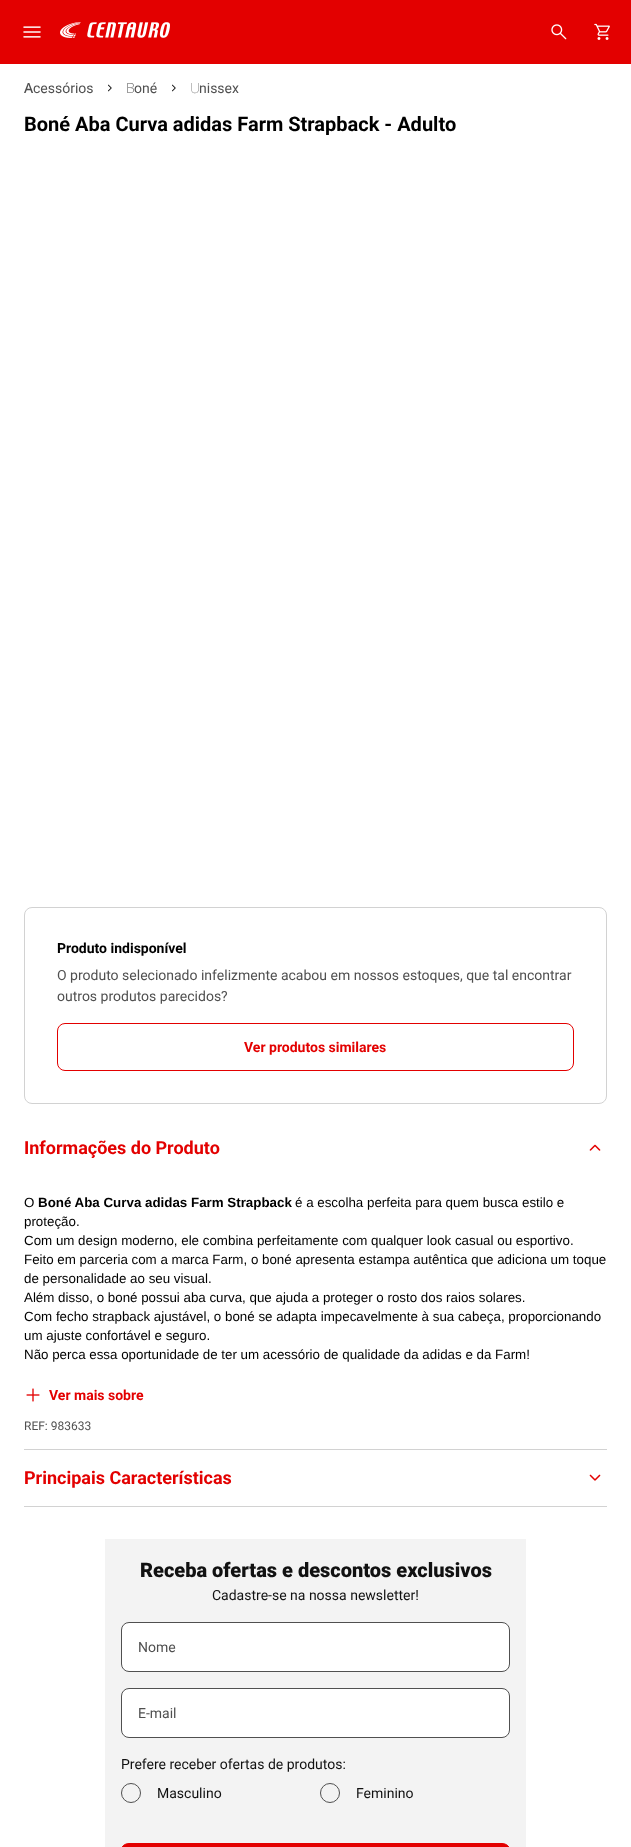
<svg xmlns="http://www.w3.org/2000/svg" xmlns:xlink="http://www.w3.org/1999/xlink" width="631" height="1847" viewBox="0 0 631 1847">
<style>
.cls-1{font:500 14px Noto Sans;fill:#505050}
.cls-2{font:14px Roboto;fill:#505050}
.cls-3{font:200 14px Noto Sans;fill:#505050}
.cls-4{font:100 14px Noto Sans;fill:#505050}
.cls-5{font:bold 20px Roboto;fill:#000000}
.cls-6{font:bold 14px Roboto;fill:#000000}
.cls-7{font:bold 14px Roboto;fill:#e30000}
.cls-8{font:bold 18px Roboto;fill:#e30000}
.cls-9{font:13.35px Liberation Sans;fill:#000000}
.cls-10{font:bold 13.35px Liberation Sans;fill:#000000}
.cls-11{font:12px Roboto;fill:#505050}
.cls-12{font:900 20px Roboto;fill:#111111}
.cls-13{font:14px Roboto;fill:#111111}
</style>
<rect width="100%" height="100%" fill="#ffffff"/>
<rect fill="#e30000" x="0" y="0" width="631" height="64"/>
<image xlink:href="image0.png" x="23" y="26" width="18" height="12"/>
<image xlink:href="image1.png" x="60" y="22" width="110" height="16"/>
<image xlink:href="image2.png" x="551" y="24" width="16" height="16"/>
<image xlink:href="image3.png" x="594" y="23" width="16" height="17"/>
<image xlink:href="image4.png" x="108" y="84" width="4" height="8"/>
<image xlink:href="image4.png" x="172" y="84" width="4" height="8"/>
<rect fill="none" stroke="#d2d2d2" x="24.5" y="907.5" width="582" height="196" rx="7.5"/>
<rect fill="none" stroke="#e30000" x="57.5" y="1023.5" width="516" height="47" rx="7.5"/>
<image xlink:href="image5.png" x="589" y="1144" width="12" height="7"/>
<image xlink:href="image6.png" x="26" y="1388" width="14" height="14"/>
<rect fill="#d2d2d2" x="24" y="1449" width="583" height="1"/>
<rect fill="#d2d2d2" x="24" y="1506" width="583" height="1"/>
<image xlink:href="image7.png" x="589" y="1474" width="12" height="7"/>
<rect fill="#f3f3f3" x="105" y="1539" width="421" height="308"/>
<rect fill="#ffffff" stroke="#505050" x="121.5" y="1622.5" width="388" height="49" rx="7.5"/>
<rect fill="#ffffff" stroke="#505050" x="121.5" y="1688.5" width="388" height="49" rx="7.5"/>
<circle fill="none" stroke="#505050" cx="131" cy="1793" r="9.5"/>
<circle fill="none" stroke="#505050" cx="330" cy="1793" r="9.5"/>
<rect fill="#e30000" stroke="#e30000" x="121.5" y="1843.5" width="388" height="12" rx="7.5"/>
<text class="cls-1" x="24" y="93">A</text>
<text class="cls-2" x="33" y="93">cessórios</text>
<text class="cls-3" x="126" y="93">B</text>
<text class="cls-2" x="134" y="93">oné</text>
<text class="cls-4" x="190" y="93">U</text>
<text class="cls-2" x="199" y="93">nissex</text>
<text class="cls-5" x="24" y="131">Boné Aba Curva adidas Farm Strapback - Adulto</text>
<text class="cls-6" x="57" y="953">Produto indisponível</text>
<text class="cls-2"><tspan x="57" y="980">O produto selecionado infelizmente acabou em nossos estoques, que tal encontrar</tspan><tspan x="57" y="1001">outros produtos parecidos?</tspan></text>
<text class="cls-7" x="244" y="1052">Ver produtos similares</text>
<text class="cls-8" x="24" y="1154">Informações do Produto</text>
<text class="cls-9" x="24" y="1207">O</text>
<text class="cls-10" x="38" y="1207">Boné Aba Curva adidas Farm Strapback</text>
<text class="cls-9" x="295" y="1207">é a escolha perfeita para quem busca estilo e</text>
<text class="cls-9"><tspan x="24" y="1226">proteção.</tspan><tspan x="24" y="1245">Com um design moderno, ele combina perfeitamente com qualquer look casual ou esportivo.</tspan><tspan x="24" y="1264">Feito em parceria com a marca Farm, o boné apresenta estampa autêntica que adiciona um toque</tspan><tspan x="24" y="1283">de personalidade ao seu visual.</tspan><tspan x="24" y="1302">Além disso, o boné possui aba curva, que ajuda a proteger o rosto dos raios solares.</tspan><tspan x="24" y="1321">Com fecho strapback ajustável, o boné se adapta impecavelmente à sua cabeça, proporcionando</tspan><tspan x="24" y="1340">um ajuste confortável e seguro.</tspan><tspan x="24" y="1359">Não perca essa oportunidade de ter um acessório de qualidade da adidas e da Farm!</tspan></text>
<text class="cls-7" x="49" y="1400">Ver mais sobre</text>
<text class="cls-11" x="24" y="1430">REF: 983633</text>
<text class="cls-8" x="24" y="1484">Principais Características</text>
<text class="cls-12" x="140" y="1577">Receba ofertas e descontos exclusivos</text>
<text class="cls-13" x="212" y="1600">Cadastre-se na nossa newsletter!</text>
<text class="cls-2" x="138" y="1652">Nome</text>
<text class="cls-2" x="138" y="1718">E-mail</text>
<text class="cls-13" x="121" y="1769">Prefere receber ofertas de produtos:</text>
<text class="cls-13" x="157" y="1798">Masculino</text>
<text class="cls-13" x="356" y="1798">Feminino</text>
</svg>
